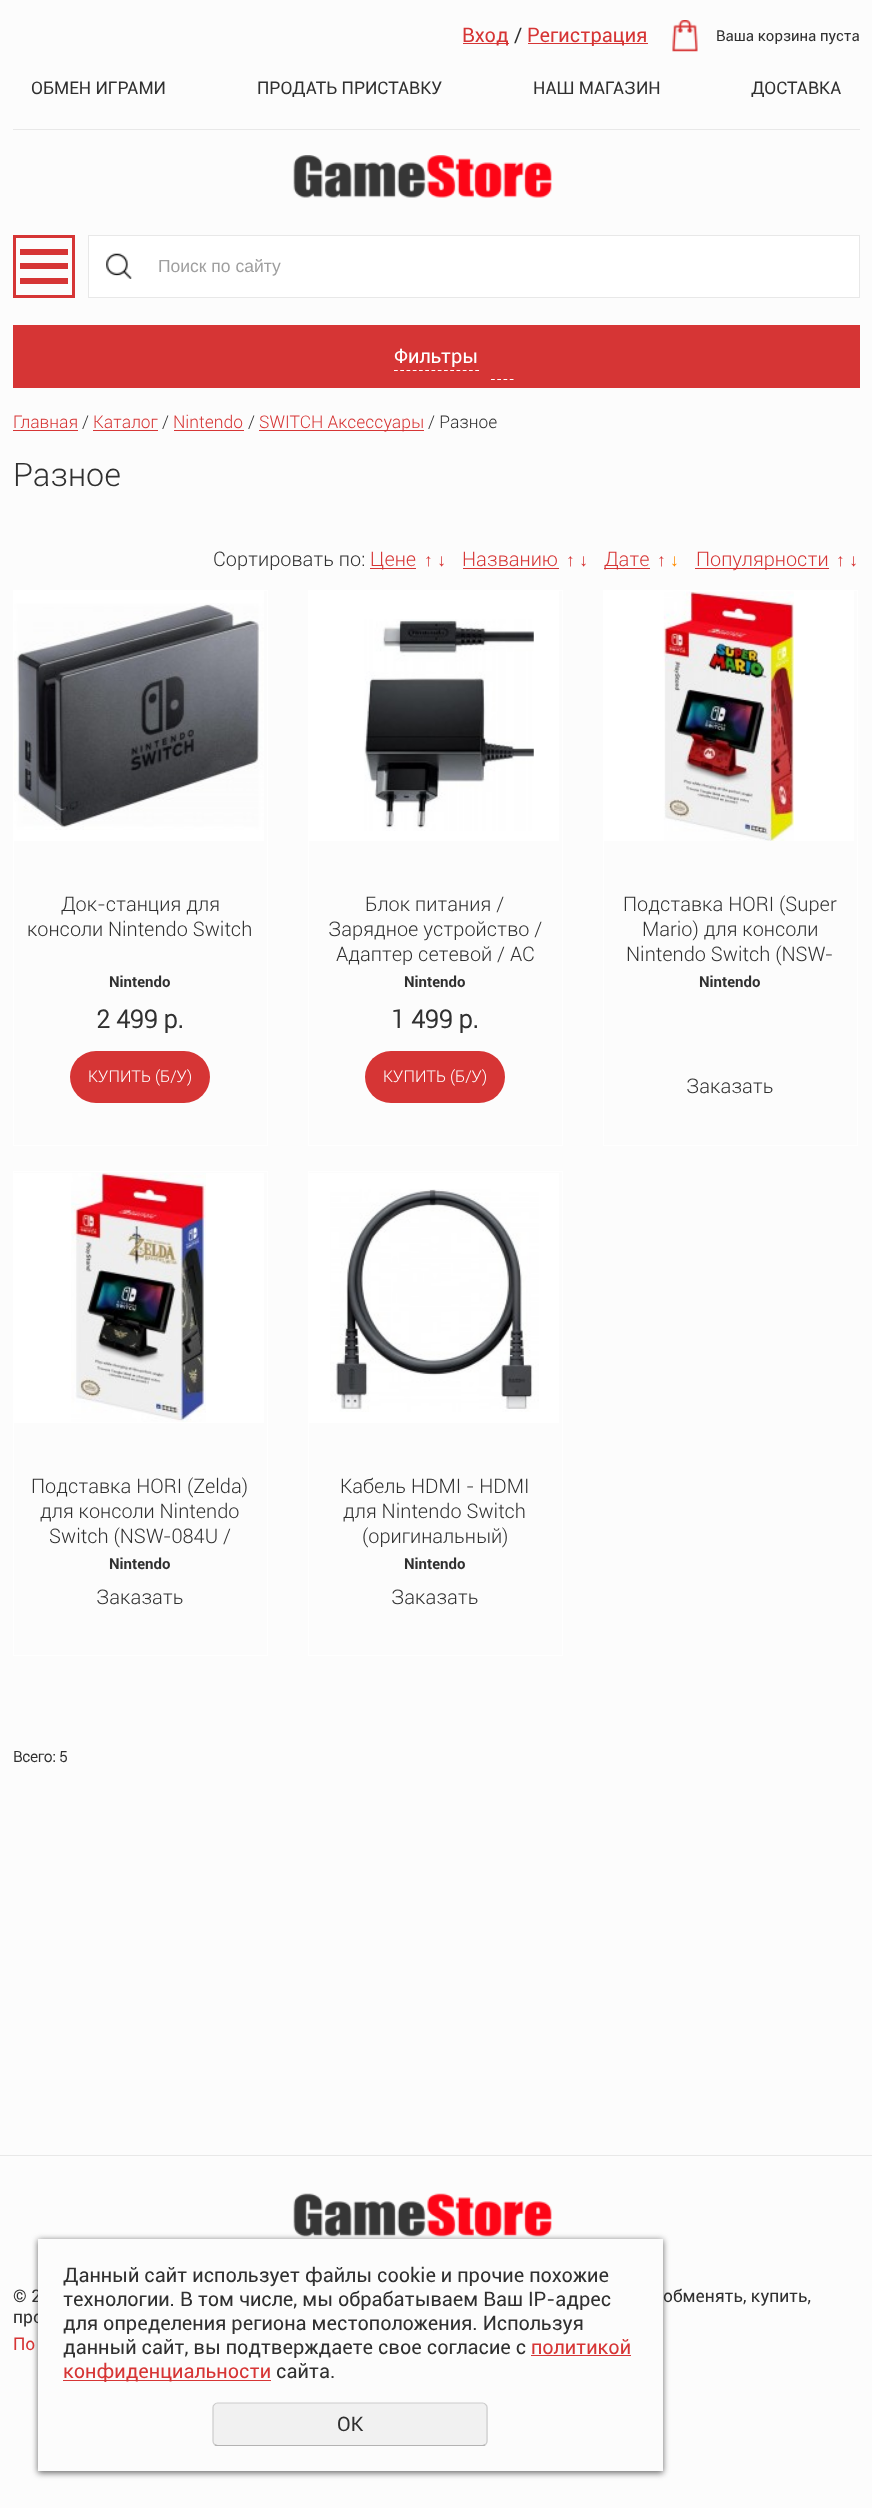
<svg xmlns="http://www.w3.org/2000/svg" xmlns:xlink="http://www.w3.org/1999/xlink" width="872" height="2508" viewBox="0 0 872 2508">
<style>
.cls-1{font:20px Roboto;fill:#d63535}
.cls-2{font:20px Roboto;fill:#303030}
.cls-3{font:15px Roboto;fill:#303030}
.cls-4{font:17.5px Roboto;fill:#303030}
.cls-5{font:17.5px Liberation Sans;fill:#9f9f9f}
.cls-6{font:20px Roboto;fill:#ffffff}
.cls-7{font:300 17.5px Roboto;fill:#d63535}
.cls-8{font:300 17.5px Roboto;fill:#303030}
.cls-9{font:300 32.5px Roboto;fill:#303030}
.cls-10{font:300 20px Roboto;fill:#303030}
.cls-11{font:300 20px Roboto;fill:#d63535}
.cls-12{font:bold 17.5px Liberation Serif;fill:#d63535}
.cls-13{font:bold 17.5px Liberation Serif;fill:#ff8c00}
.cls-14{font:bold 15px 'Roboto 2';fill:#303030}
.cls-15{font:bold 25px Roboto;fill:#303030}
.cls-16{font:300 16.25px Roboto;fill:#ffffff}
.cls-17{font:bold 15px Roboto;fill:#303030}
.cls-18{font:17.5px Roboto;fill:#d63535}
</style>
<rect width="100%" height="100%" fill="#fcfcfc"/>
<rect fill="#e8e8e8" x="13" y="129" width="847" height="1"/>
<rect fill="#d63535" x="463" y="43" width="46" height="1"/>
<rect fill="#d63535" x="528" y="43" width="120" height="1"/>
<image xlink:href="image0.png" x="672" y="20" width="26" height="32"/>
<image xlink:href="image1.png" x="293" y="155" width="259" height="43"/>
<rect fill="none" stroke="#d63535" stroke-width="3" x="14.5" y="236.5" width="59" height="60"/>
<rect fill="#d63535" x="20" y="249" width="48" height="6"/>
<rect fill="#d63535" x="20" y="263" width="48" height="6"/>
<rect fill="#d63535" x="20" y="278" width="48" height="6"/>
<rect fill="#ffffff" stroke="#e8e8e8" x="88.5" y="235.5" width="771" height="62"/>
<image xlink:href="image2.png" x="106" y="253" width="26" height="26"/>
<rect fill="#d63535" x="13" y="325" width="847" height="63"/>
<path fill="none" stroke="#ffffff" stroke-width="1.2" stroke-dasharray="3.75 2.5" d="M394 370.5H479"/>
<path fill="none" stroke="#ffffff" stroke-width="1.2" stroke-dasharray="3.75 2.5" d="M491 379.5H514"/>
<rect fill="#d63535" x="13" y="430" width="65" height="1"/>
<rect fill="#d63535" x="93" y="430" width="65" height="1"/>
<rect fill="#d63535" x="174" y="430" width="70" height="1"/>
<rect fill="#d63535" x="259" y="430" width="165" height="1"/>
<rect fill="#d63535" x="370" y="568" width="46" height="1"/>
<rect fill="#d63535" x="463" y="568" width="96" height="1"/>
<rect fill="#d63535" x="604" y="568" width="46" height="1"/>
<rect fill="#d63535" x="695" y="568" width="134" height="1"/>
<rect fill="none" stroke="#ffffff" x="13.5" y="590.5" width="254" height="555"/>
<rect fill="#ffffff" x="14" y="591" width="250" height="250"/>
<image xlink:href="image3.png" x="14" y="603" width="250" height="227"/>
<rect fill="#d63535" x="70" y="1051" width="140" height="52" rx="26"/>
<rect fill="none" stroke="#ffffff" x="308.5" y="590.5" width="254" height="555"/>
<rect fill="#ffffff" x="309" y="591" width="250" height="250"/>
<image xlink:href="image4.png" x="364" y="619" width="170" height="212"/>
<rect fill="#d63535" x="365" y="1051" width="140" height="52" rx="26"/>
<rect fill="none" stroke="#ffffff" x="603.5" y="590.5" width="254" height="555"/>
<rect fill="#ffffff" x="604" y="591" width="250" height="250"/>
<image xlink:href="image5.png" x="663" y="591" width="131" height="250"/>
<rect fill="none" stroke="#ffffff" x="13.5" y="1171.5" width="254" height="484"/>
<rect fill="#ffffff" x="14" y="1173" width="250" height="250"/>
<image xlink:href="image6.png" x="71" y="1173" width="135" height="249"/>
<rect fill="none" stroke="#ffffff" x="308.5" y="1171.5" width="254" height="484"/>
<rect fill="#ffffff" x="309" y="1173" width="250" height="250"/>
<image xlink:href="image7.png" x="330" y="1189" width="209" height="223"/>
<rect fill="#e8e8e8" x="0" y="2155" width="872" height="1"/>
<image xlink:href="image8.png" x="293" y="2193" width="259" height="44"/>
<rect fill="#666666" filter="blur(3px)" x="38" y="2240" width="625" height="233"/>
<text class="cls-1" x="462" y="42">Вход</text>
<text class="cls-2" x="514" y="42">/</text>
<text class="cls-1" x="527" y="42">Регистрация</text>
<text class="cls-3" x="716" y="41">Ваша корзина пуста</text>
<text class="cls-4" x="31" y="94">ОБМЕН ИГРАМИ</text>
<text class="cls-4" x="257" y="94">ПРОДАТЬ ПРИСТАВКУ</text>
<text class="cls-4" x="533" y="94">НАШ МАГАЗИН</text>
<text class="cls-4" x="751" y="94">ДОСТАВКА</text>
<text class="cls-5" x="158" y="272">Поиск по сайту</text>
<text class="cls-6" x="394" y="363">Фильтры</text>
<text class="cls-7" x="13" y="428">Главная</text>
<text class="cls-8" x="82" y="428">/</text>
<text class="cls-7" x="93" y="428">Каталог</text>
<text class="cls-8" x="162" y="428">/</text>
<text class="cls-7" x="173" y="428">Nintendo</text>
<text class="cls-8" x="248" y="428">/</text>
<text class="cls-7" x="259" y="428">SWITCH Аксессуары</text>
<text class="cls-8" x="428" y="428">/ Разное</text>
<text class="cls-9" x="13" y="486">Разное</text>
<text class="cls-10" x="213" y="566">Сортировать по:</text>
<text class="cls-11" x="370" y="566">Цене</text>
<text class="cls-12" x="424" y="566">↑ ↓</text>
<text class="cls-11" x="462" y="566">Названию</text>
<text class="cls-12" x="566" y="566">↑ ↓</text>
<text class="cls-11" x="604" y="566">Дате</text>
<text class="cls-12" x="657" y="566">↑</text>
<text class="cls-13" x="670" y="566">↓</text>
<text class="cls-11" x="696" y="566">Популярности</text>
<text class="cls-12" x="836" y="566">↑ ↓</text>
<text class="cls-10" x="61" y="911">Док-станция для</text>
<text class="cls-10" x="27" y="936">консоли Nintendo Switch</text>
<text class="cls-14" x="109" y="987">Nintendo</text>
<text class="cls-15" x="96" y="1028">2 499 р.</text>
<text class="cls-16" x="88" y="1082">КУПИТЬ (Б/У)</text>
<text class="cls-10" x="365" y="911">Блок питания /</text>
<text class="cls-10" x="328" y="936">Зарядное устройство /</text>
<text class="cls-10" x="336" y="961">Адаптер сетевой / AC</text>
<text class="cls-14" x="404" y="987">Nintendo</text>
<text class="cls-15" x="391" y="1028">1 499 р.</text>
<text class="cls-16" x="383" y="1082">КУПИТЬ (Б/У)</text>
<text class="cls-10" x="623" y="911">Подставка HORI (Super</text>
<text class="cls-10" x="642" y="936">Mario) для консоли</text>
<text class="cls-10" x="626" y="961">Nintendo Switch (NSW-</text>
<text class="cls-14" x="699" y="987">Nintendo</text>
<text class="cls-10" x="686" y="1093">Заказать</text>
<text class="cls-10" x="31" y="1493">Подставка HORI (Zelda)</text>
<text class="cls-10" x="40" y="1518">для консоли Nintendo</text>
<text class="cls-10" x="49" y="1543">Switch (NSW-084U /</text>
<text class="cls-14" x="109" y="1569">Nintendo</text>
<text class="cls-10" x="96" y="1604">Заказать</text>
<text class="cls-10" x="340" y="1493">Кабель HDMI - HDMI</text>
<text class="cls-10" x="343" y="1518">для Nintendo Switch</text>
<text class="cls-10" x="362" y="1543">(оригинальный)</text>
<text class="cls-14" x="404" y="1569">Nintendo</text>
<text class="cls-10" x="391" y="1604">Заказать</text>
<text class="cls-17" x="13" y="1762">Всего: 5</text>
<text class="cls-4" x="13" y="2302">© 2</text>
<text class="cls-4" x="663" y="2302">обменять, купить,</text>
<text class="cls-4" x="13" y="2323">про</text>
<text class="cls-18" x="13" y="2350">По</text>
<rect fill="#fcfcfc" x="38" y="2239" width="625" height="232"/>
<text class="cls-2"><tspan x="63" y="2282">Данный сайт использует файлы cookie и прочие похожие</tspan><tspan x="63" y="2306">технологии. В том числе, мы обрабатываем Ваш IP-адрес</tspan><tspan x="63" y="2330">для определения региона местоположения. Используя</tspan><tspan x="63" y="2354">данный сайт, вы подтверждаете свое согласие с</tspan></text>
<text class="cls-1" x="531" y="2354">политикой</text>
<rect fill="#d63535" x="531" y="2355" width="100" height="1"/>
<rect fill="#d63535" x="63" y="2380" width="208" height="1"/>
<text class="cls-1" x="63" y="2378">конфиденциальности</text>
<text class="cls-2" x="276" y="2378">сайта.</text>
<rect fill="#f1f1f1" x="213" y="2403" width="275" height="43" rx="5"/>
<path fill="none" stroke="#b3b3b3" stroke-width="1.2" d="M485.5 2444.5C485 2445 483.5 2445.5 482.5 2445.5H217.5C216.5 2445.5 215 2445 214.5 2444.5"/>
<path fill="none" stroke="#cccccc" stroke-width="1.2" d="M214.5 2444.5C213.5 2443.5 213 2442.5 213 2441V2407.5C213 2406.5 213.5 2405 214.5 2404.5C215 2403.5 216.5 2403 217.5 2403H482.5C483.5 2403 485 2403.5 485.5 2404.5C486.5 2405 487 2406.5 487 2407.5V2441C487 2442.5 486.5 2443.5 485.5 2444.5"/>
<text class="cls-2" x="337" y="2431">ОК</text>
</svg>
